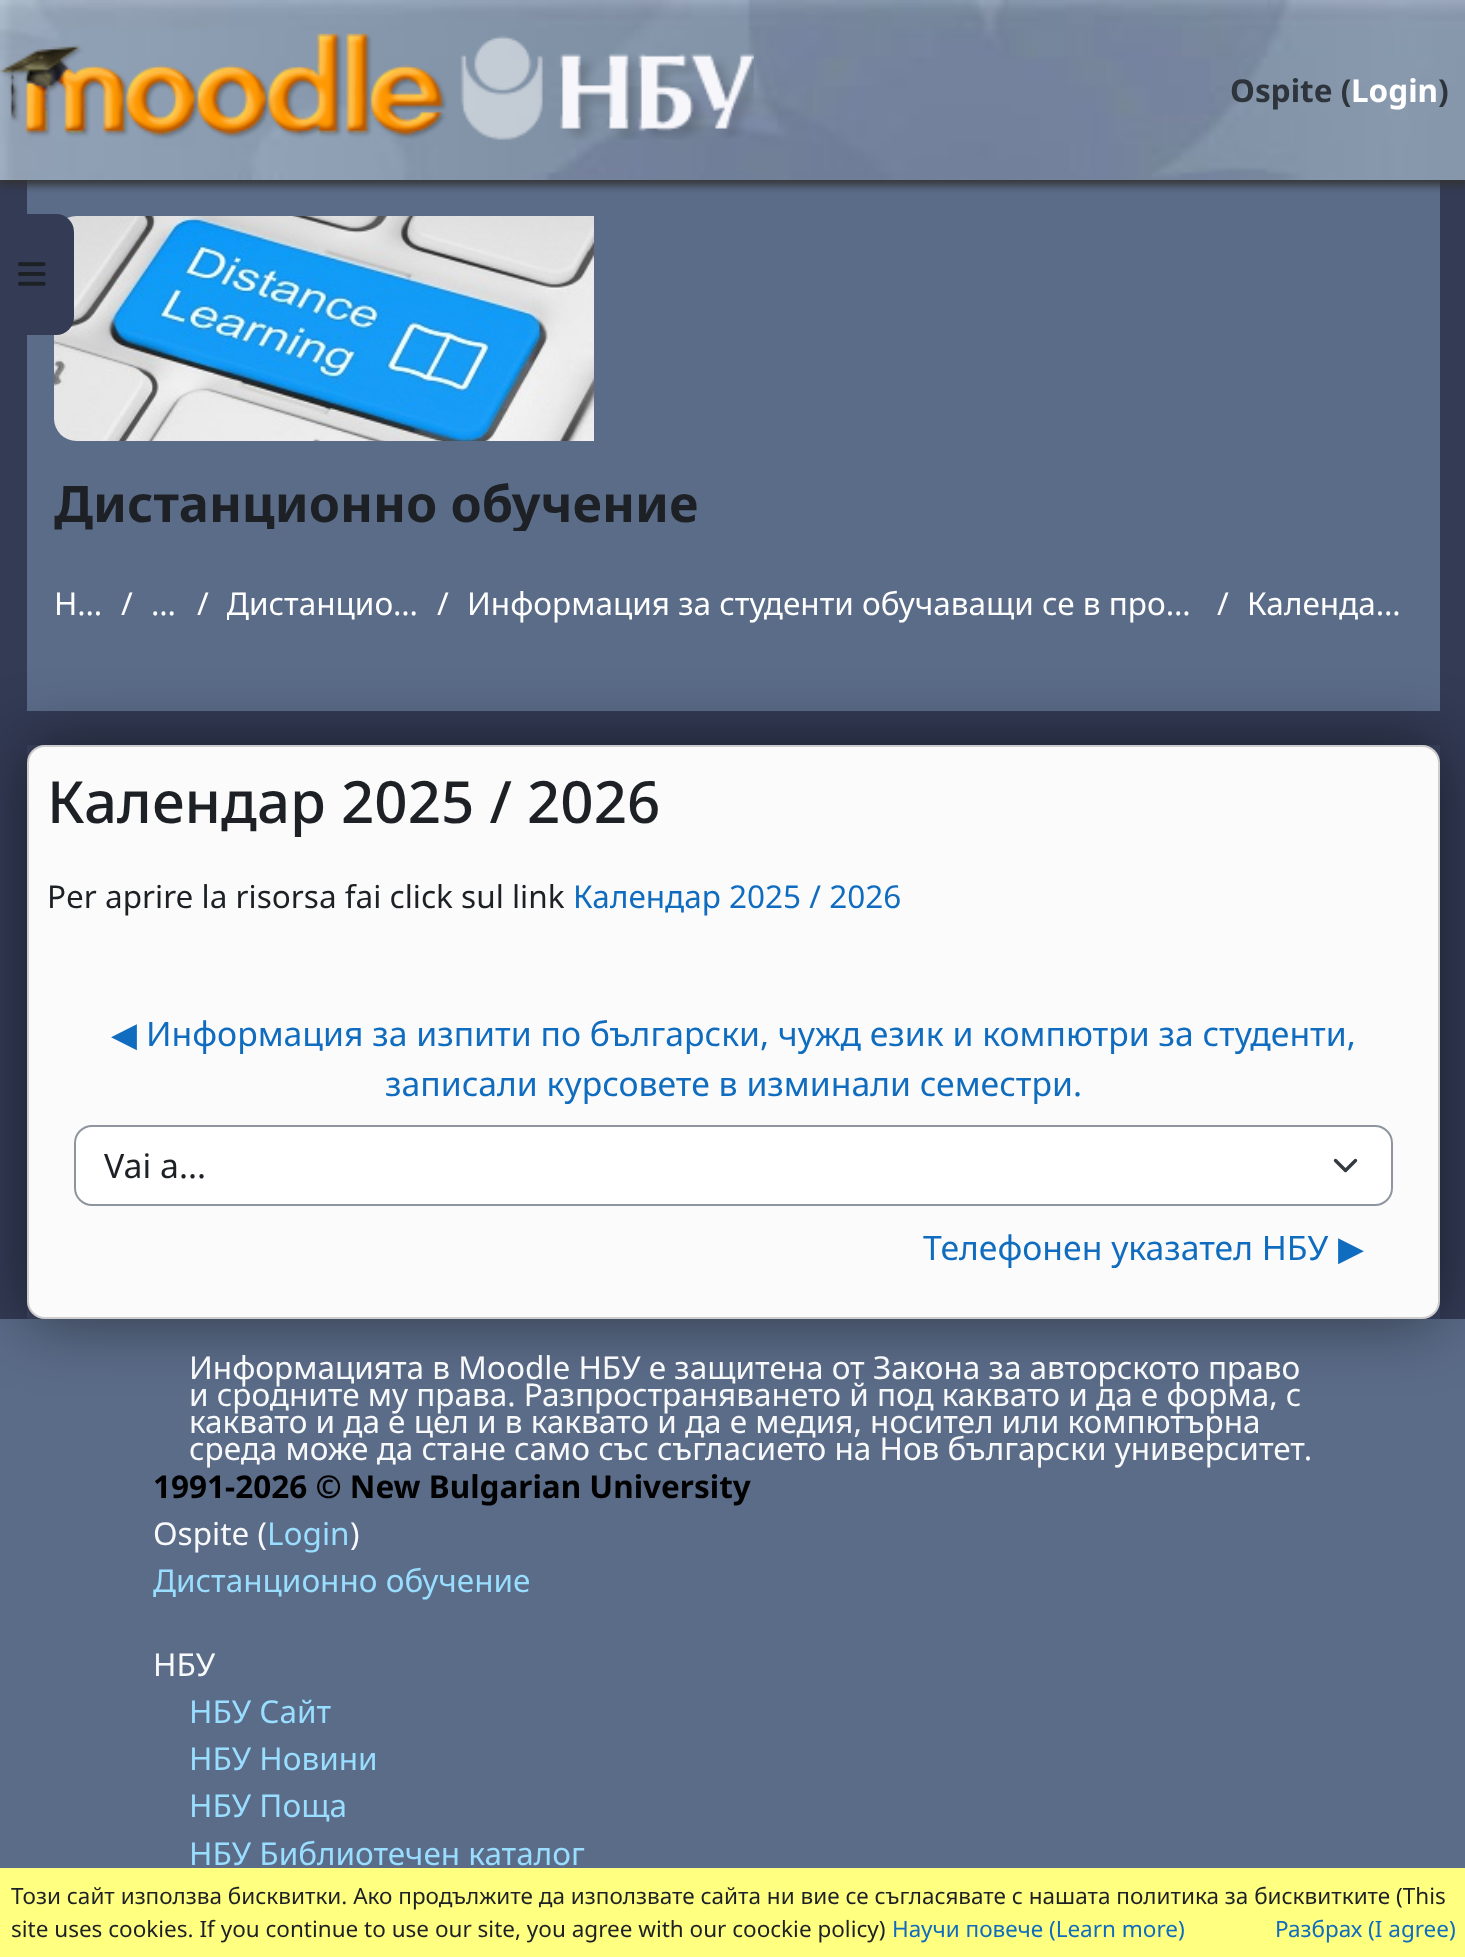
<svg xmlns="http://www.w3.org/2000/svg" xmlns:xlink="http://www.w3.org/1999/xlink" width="1465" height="1957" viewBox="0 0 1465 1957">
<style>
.cls-1{font:bold 31.5px Noto Sans;fill:#2e343b}
.cls-2{font:bold 31.5px Noto Sans;fill:#ffffff}
.cls-3{font:bold 50.4px Noto Sans;fill:#1d2125}
.cls-4{font:31.5px Noto Sans;fill:#ffffff}
.cls-5{font:500 58.25px Noto Sans;fill:#1d2125}
.cls-6{font:31.5px Noto Sans;fill:#1d2125}
.cls-7{font:31.5px Noto Sans;fill:#0f6cbf}
.cls-8{font:33.75px DejaVu Sans;fill:#0f6cbf}
.cls-9{font:33.75px Noto Sans;fill:#0f6cbf}
.cls-10{font:33.75px Noto Sans;fill:#1d2125}
.cls-11{font:31.5px Noto Sans;fill:#f8f9fa}
.cls-12{font:bold 31.5px Noto Sans;fill:#000000}
.cls-13{font:31.5px Noto Sans;fill:#99ddff}
.cls-14{font:22.5px Noto Sans;fill:#1d2125}
.cls-15{font:22.5px Noto Sans;fill:#0f6cbf}
</style>
<defs>
<clipPath id="clip1"><path d="M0 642H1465V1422H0ZM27 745H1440V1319H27Z" clip-rule="evenodd"/></clipPath>
<clipPath id="clip2"><rect x="54" y="441" width="644" height="90"/></clipPath>
<clipPath id="clip3"><rect x="227" y="578" width="192" height="48"/></clipPath>
</defs>
<rect width="100%" height="100%" fill="#333b55"/>
<rect fill="#5b6c89" x="27" y="180" width="1413" height="531"/>
<rect fill="#333333" filter="blur(4.5px)" x="0" y="5" width="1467" height="180"/>
<image xlink:href="image0.png" x="0" y="0" width="1465" height="180"/>
<image xlink:href="image1.png" x="0" y="33" width="754" height="107"/>
<image xlink:href="image3.png" x="54" y="216" width="540" height="225"/>
<rect fill="#333b55" x="-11" y="214" width="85" height="121" rx="18"/>
<image xlink:href="image2.png" x="18" y="262" width="28" height="24"/>
<rect fill="#5b6c89" x="0" y="1319" width="1465" height="549"/>
<g clip-path="url(#clip1)">
<rect fill="#000000" fill-opacity="0.5" filter="blur(34px)" x="27" y="745" width="1413" height="574"/>
</g>
<rect fill="#ffffff" fill-opacity="0.98" x="27" y="745" width="1413" height="574" rx="18"/>
<rect fill="none" stroke="#000000" stroke-opacity="0.18" stroke-width="2" x="28" y="746" width="1411" height="572" rx="17"/>
<rect fill="#ffffff" x="74" y="1125" width="1319" height="81" rx="18"/>
<path fill="none" stroke="#343a40" stroke-width="3.4" stroke-linecap="round" stroke-linejoin="round" d="M1335.5 1160.5L1345.5 1170.5L1355.5 1160.5"/>
<rect fill="none" stroke="#8f959e" stroke-width="2" x="75" y="1126" width="1317" height="79" rx="17"/>
<rect fill="#ffff80" x="0" y="1868" width="1465" height="89"/>
<text class="cls-1" x="1230" y="102">Ospite (</text>
<text class="cls-2" x="1351" y="102">Login</text>
<text class="cls-1" x="1438" y="102">)</text>
<g clip-path="url(#clip2)">
<text class="cls-3" x="54" y="522">Дистанционно обучение</text>
</g>
<text class="cls-4" x="54" y="615">H…</text>
<text class="cls-4" x="121" y="615">/</text>
<text class="cls-4" x="151" y="615">…</text>
<text class="cls-4" x="197" y="615">/</text>
<g clip-path="url(#clip3)">
<text class="cls-4" x="226" y="615">Дистанцио…</text>
</g>
<text class="cls-4" x="437" y="615">/</text>
<text class="cls-4" x="467" y="615">Информация за студенти обучаващи се в про…</text>
<text class="cls-4" x="1217" y="615">/</text>
<text class="cls-4" x="1247" y="615">Календа…</text>
<text class="cls-5" x="47" y="823">Календар 2025 / 2026</text>
<text class="cls-6" x="47" y="908">Per aprire la risorsa fai click sul link</text>
<text class="cls-7" x="573" y="908">Календар 2025 / 2026</text>
<text class="cls-8" x="111" y="1046">◀︎</text>
<text class="cls-9" x="146" y="1046">Информация за изпити по български, чужд език и компютри за студенти,</text>
<text class="cls-9" x="385" y="1096">записали курсовете в изминали семестри.</text>
<text class="cls-10" x="104" y="1178">Vai a...</text>
<text class="cls-9" x="923" y="1260">Телефонен указател НБУ</text>
<text class="cls-8" x="1338" y="1260">▶︎</text>
<text class="cls-11"><tspan x="189" y="1379">Информацията в Moodle НБУ е защитена от Закона за авторското право</tspan><tspan x="189" y="1406">и сродните му права. Разпространяването й под каквато и да е форма, с</tspan><tspan x="189" y="1433">каквато и да е цел и в каквато и да е медия, носител или компютърна</tspan><tspan x="189" y="1460">среда може да стане само със съгласието на Нов български университет.</tspan></text>
<text class="cls-12" x="153" y="1498">1991-2026 © New Bulgarian University</text>
<text class="cls-11" x="153" y="1545">Ospite (</text>
<text class="cls-13" x="267" y="1545">Login</text>
<text class="cls-11" x="350" y="1545">)</text>
<text class="cls-13" x="153" y="1592">Дистанционно обучение</text>
<text class="cls-11" x="153" y="1676">НБУ</text>
<text class="cls-13"><tspan x="189" y="1723">НБУ Сайт</tspan><tspan x="189" y="1770">НБУ Новини</tspan><tspan x="189" y="1817">НБУ Поща</tspan><tspan x="189" y="1865">НБУ Библиотечен каталог</tspan></text>
<text class="cls-14"><tspan x="11" y="1904">Този сайт използва бисквитки. Ако продължите да използвате сайта ни вие се съгласявате с нашата политика за бисквитките (This</tspan><tspan x="11" y="1937">site uses cookies. If you continue to use our site, you agree with our coockie policy)</tspan></text>
<text class="cls-15" x="892" y="1937">Научи повече (Learn more)</text>
<text class="cls-15" x="1275" y="1937">Разбрах (I agree)</text>
</svg>
